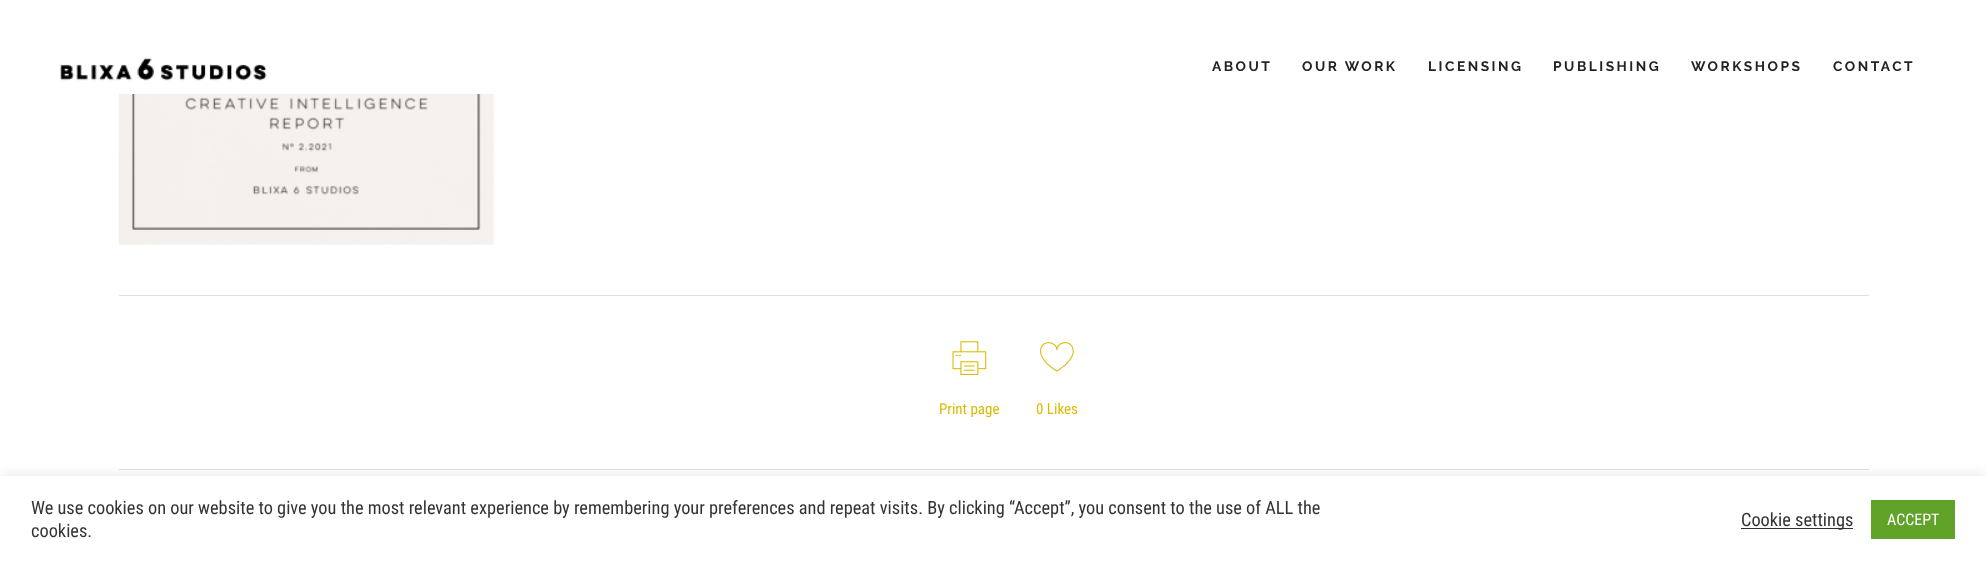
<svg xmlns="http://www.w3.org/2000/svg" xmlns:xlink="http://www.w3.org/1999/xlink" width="1986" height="562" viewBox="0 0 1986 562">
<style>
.cls-1{font:bold 13.75px Raleway;letter-spacing:2.5px;fill:#232323}
.cls-2{font:15px Roboto Condensed;fill:#d8bb00}
.cls-3{font:18.33px Roboto Condensed;fill:#333333}
.cls-4{font:16px Roboto Condensed;fill:#ffffff}
</style>
<rect width="100%" height="100%" fill="#ffffff"/>
<image xlink:href="image0.png" x="60" y="58" width="207" height="23"/>
<image xlink:href="image1.png" x="118" y="94" width="376" height="151"/>
<rect fill="#e0e0e0" x="119" y="295" width="1750" height="1"/>
<rect fill="#e0e0e0" x="119" y="469" width="1750" height="1"/>
<image xlink:href="image2.png" x="952" y="341" width="35" height="34"/>
<image xlink:href="image3.png" x="1040" y="342" width="34" height="30"/>
<rect fill="#acabab" fill-opacity="0.3" filter="blur(6px)" x="0" y="475" width="1986" height="86"/>
<rect fill="#ffffff" x="0" y="476" width="1986" height="86"/>
<rect fill="#333333" x="1741" y="528" width="112" height="1"/>
<rect fill="#61a229" x="1871" y="500" width="84" height="39"/>
<text class="cls-1" x="1212" y="71">ABOUT</text>
<text class="cls-1" x="1302" y="71">OUR WORK</text>
<text class="cls-1" x="1428" y="71">LICENSING</text>
<text class="cls-1" x="1553" y="71">PUBLISHING</text>
<text class="cls-1" x="1691" y="71">WORKSHOPS</text>
<text class="cls-1" x="1833" y="71">CONTACT</text>
<text class="cls-2" x="939" y="414">Print page</text>
<text class="cls-2" x="1036" y="414">0 Likes</text>
<text class="cls-3"><tspan x="31" y="514">We use cookies on our website to give you the most relevant experience by remembering your preferences and repeat visits. By clicking “Accept”, you consent to the use of ALL the</tspan><tspan x="31" y="537">cookies.</tspan></text>
<text class="cls-3" x="1741" y="526">Cookie settings</text>
<text class="cls-4" x="1887" y="525">ACCEPT</text>
</svg>
